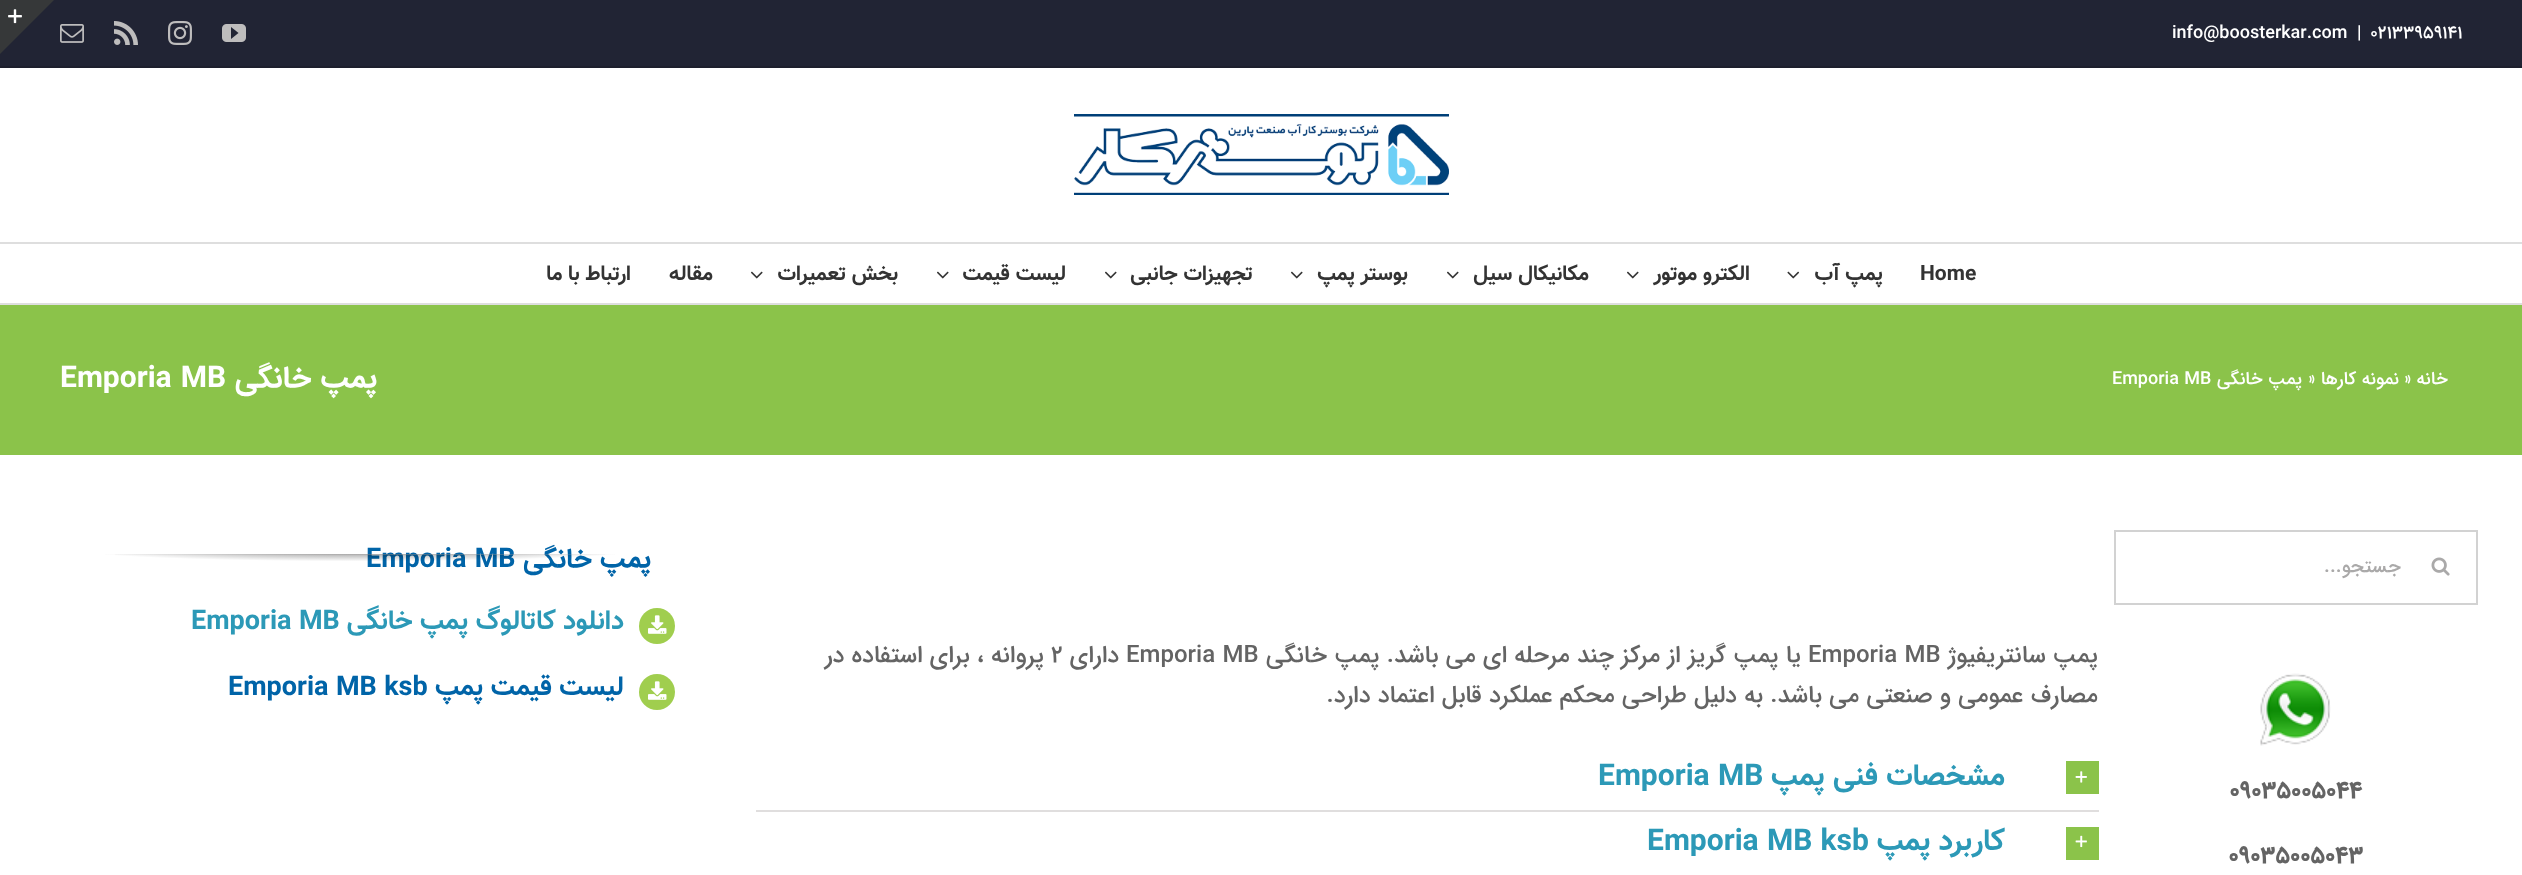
<svg xmlns="http://www.w3.org/2000/svg" xmlns:xlink="http://www.w3.org/1999/xlink" width="2522" height="875" viewBox="0 0 2522 875">
<style>
.cls-1{font:500 18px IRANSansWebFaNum;fill:#ffffff}
.cls-2{font:bold 21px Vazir;fill:#333333}
.cls-3{font:bold 21px Vazir;direction:rtl;fill:#333333}
.cls-4{font:500 18px IRANSansWebFaNum;direction:rtl;fill:#ffffff}
.cls-5{font:bold 30px IRANSansWebFaNum;direction:rtl;fill:#ffffff}
.cls-6{font:bold 30px IRANSansWebFaNum;fill:#ffffff}
.cls-7{font:500 19.5px IRANSansWebFaNum;direction:rtl;fill:#aaa9a9}
.cls-8{font:bold 24px 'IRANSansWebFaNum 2';fill:#646464}
.cls-9{font:bold 27px IRANSansWebFaNum;direction:rtl;fill:#0064a8}
.cls-10{font:bold 27px IRANSansWebFaNum;fill:#0064a8}
.cls-11{font:500 24px IRANSansWebFaNum;direction:rtl;fill:#646464}
.cls-12{font:500 24px IRANSansWebFaNum;fill:#646464}
.cls-13{font:bold 30px Vazir;direction:rtl;fill:#2c99b7}
.cls-14{font:bold 30px Vazir;fill:#2c99b7}
.cls-15{font:bold 27px Vazir;direction:rtl;fill:#2c99b7}
.cls-16{font:bold 27px Vazir;fill:#2c99b7}
.cls-17{font:bold 27px Vazir;direction:rtl;fill:#0064a8}
.cls-18{font:bold 27px Vazir;fill:#0064a8}
</style>
<defs>
<radialGradient id="g1" gradientUnits="userSpaceOnUse" cx="0" cy="0" r="1" gradientTransform="matrix(445 0 0 3.2 360 553)"><stop offset="0" stop-color="#e0dede"/><stop offset="0.8" stop-color="#e0dede" stop-opacity="0"/></radialGradient>
<radialGradient id="g2" gradientUnits="userSpaceOnUse" cx="0" cy="0" r="1" gradientTransform="matrix(445 0 0 19 360 549)"><stop offset="0" stop-color="#000000" stop-opacity="0.5"/><stop offset="0.65" stop-color="#000000" stop-opacity="0"/></radialGradient>
</defs>
<rect width="100%" height="100%" fill="#ffffff"/>
<rect fill="#212434" x="0" y="0" width="2522" height="66"/>
<rect fill="#1d1f2d" x="0" y="66" width="2522" height="2"/>
<image xlink:href="image0.png" x="222" y="24" width="24" height="18"/>
<image xlink:href="image1.png" x="168" y="21" width="24" height="24"/>
<image xlink:href="image2.png" x="114" y="21" width="24" height="24"/>
<image xlink:href="image3.png" x="60" y="24" width="24" height="19"/>
<rect fill="#dedede" x="0" y="242" width="2522" height="2"/>
<image xlink:href="image4.png" x="1074" y="114" width="375" height="81"/>
<rect fill="#dedede" x="0" y="303" width="2522" height="2"/>
<image xlink:href="image5.png" x="1787" y="271" width="13" height="8"/>
<image xlink:href="image6.png" x="1627" y="271" width="12" height="8"/>
<image xlink:href="image6.png" x="1447" y="271" width="12" height="8"/>
<image xlink:href="image6.png" x="1291" y="271" width="12" height="8"/>
<image xlink:href="image6.png" x="1105" y="271" width="12" height="8"/>
<image xlink:href="image6.png" x="937" y="271" width="12" height="8"/>
<image xlink:href="image6.png" x="751" y="271" width="12" height="8"/>
<path fill="#363839" d="M0 0H54L0 54Z"/>
<image xlink:href="image7.png" x="8" y="9" width="14" height="15"/>
<rect fill="#8bc34a" x="0" y="305" width="2522" height="150"/>
<rect fill="none" stroke="#d2d2d2" stroke-width="2" x="2115" y="531" width="362" height="73"/>
<image xlink:href="image8.png" x="2431" y="557" width="19" height="19"/>
<image xlink:href="image9.png" x="2260" y="673" width="71" height="73"/>
<rect fill="#e0dede" x="756" y="810" width="1343" height="2"/>
<rect fill="#8bc34a" x="2066" y="761" width="33" height="33"/>
<image xlink:href="image10.png" x="2075" y="771" width="12" height="12"/>
<rect fill="#8bc34a" x="2066" y="827" width="33" height="33"/>
<image xlink:href="image11.png" x="2075" y="835" width="12" height="13"/>
<circle fill="#a0ce4e" cx="657" cy="626" r="18"/>
<image xlink:href="image12.png" x="648" y="615" width="19" height="19"/>
<circle fill="#a0ce4e" cx="657" cy="692" r="18"/>
<image xlink:href="image12.png" x="648" y="681" width="19" height="19"/>
<text class="cls-1" x="2370" y="38">02133959141</text>
<text class="cls-1" x="2357" y="38">|</text>
<text class="cls-1" x="2172" y="38">info@boosterkar.com</text>
<text class="cls-2" x="1920" y="280">Home</text>
<text class="cls-3" x="1883" y="280">پمپ آب</text>
<text class="cls-3" x="1750" y="280">الکترو موتور</text>
<text class="cls-3" x="1589" y="280">مکانیکال سیل</text>
<text class="cls-3" x="1408" y="280">بوستر پمپ</text>
<text class="cls-3" x="1253" y="280">تجهیزات جانبی</text>
<text class="cls-3" x="1066" y="280">لیست قیمت</text>
<text class="cls-3" x="898" y="280">بخش تعمیرات</text>
<text class="cls-3" x="713" y="280">مقاله</text>
<text class="cls-3" x="631" y="280">ارتباط با ما</text>
<text class="cls-4" x="2448" y="384">خانه</text>
<text class="cls-1" x="2404" y="384">»</text>
<text class="cls-4" x="2399" y="384">نمونه کارها</text>
<text class="cls-1" x="2308" y="384">»</text>
<text class="cls-4" x="2302" y="384">پمپ خانگی</text>
<text class="cls-1" x="2112" y="384">Emporia MB</text>
<text class="cls-5" x="377" y="387">پمپ خانگی</text>
<text class="cls-6" x="60" y="387">Emporia MB</text>
<text class="cls-7" x="2401" y="572">جستجو...</text>
<text class="cls-8" x="2229" y="798">09035005044</text>
<text class="cls-8" x="2228" y="863">09035005043</text>
<text class="cls-9" x="651" y="567">پمپ خانگی</text>
<text class="cls-10" x="366" y="567">Emporia MB</text>
<text class="cls-11" x="2098" y="662">پمپ سانتریفیوژ</text>
<text class="cls-12" x="1808" y="662">Emporia MB</text>
<text class="cls-11" x="1801" y="662">یا پمپ گریز از مرکز چند مرحله ای می باشد. پمپ خانگی</text>
<text class="cls-12" x="1126" y="662">Emporia MB</text>
<text class="cls-11" x="1119" y="662">دارای</text>
<text class="cls-12" x="1051" y="662">۲</text>
<text class="cls-11" x="1044" y="662">پروانه ، برای استفاده در</text>
<text class="cls-11" x="2098" y="702">مصارف عمومی و صنعتی می باشد. به دلیل طراحی محکم عملکرد قابل اعتماد دارد.</text>
<text class="cls-13" x="2005" y="785">مشخصات فنی پمپ</text>
<text class="cls-14" x="1598" y="785">Emporia MB</text>
<text class="cls-13" x="2005" y="850">کاربرد پمپ</text>
<text class="cls-14" x="1647" y="850">Emporia MB ksb</text>
<rect fill="url(#g1)" x="105" y="554" width="510" height="2"/>
<rect fill="url(#g2)" x="115" y="554" width="490" height="7"/>
<text class="cls-15" x="624" y="629">دانلود کاتالوگ پمپ خانگی</text>
<text class="cls-16" x="191" y="629">Emporia MB</text>
<text class="cls-17" x="624" y="695">لیست قیمت پمپ</text>
<text class="cls-18" x="228" y="695">Emporia MB ksb</text>
</svg>
